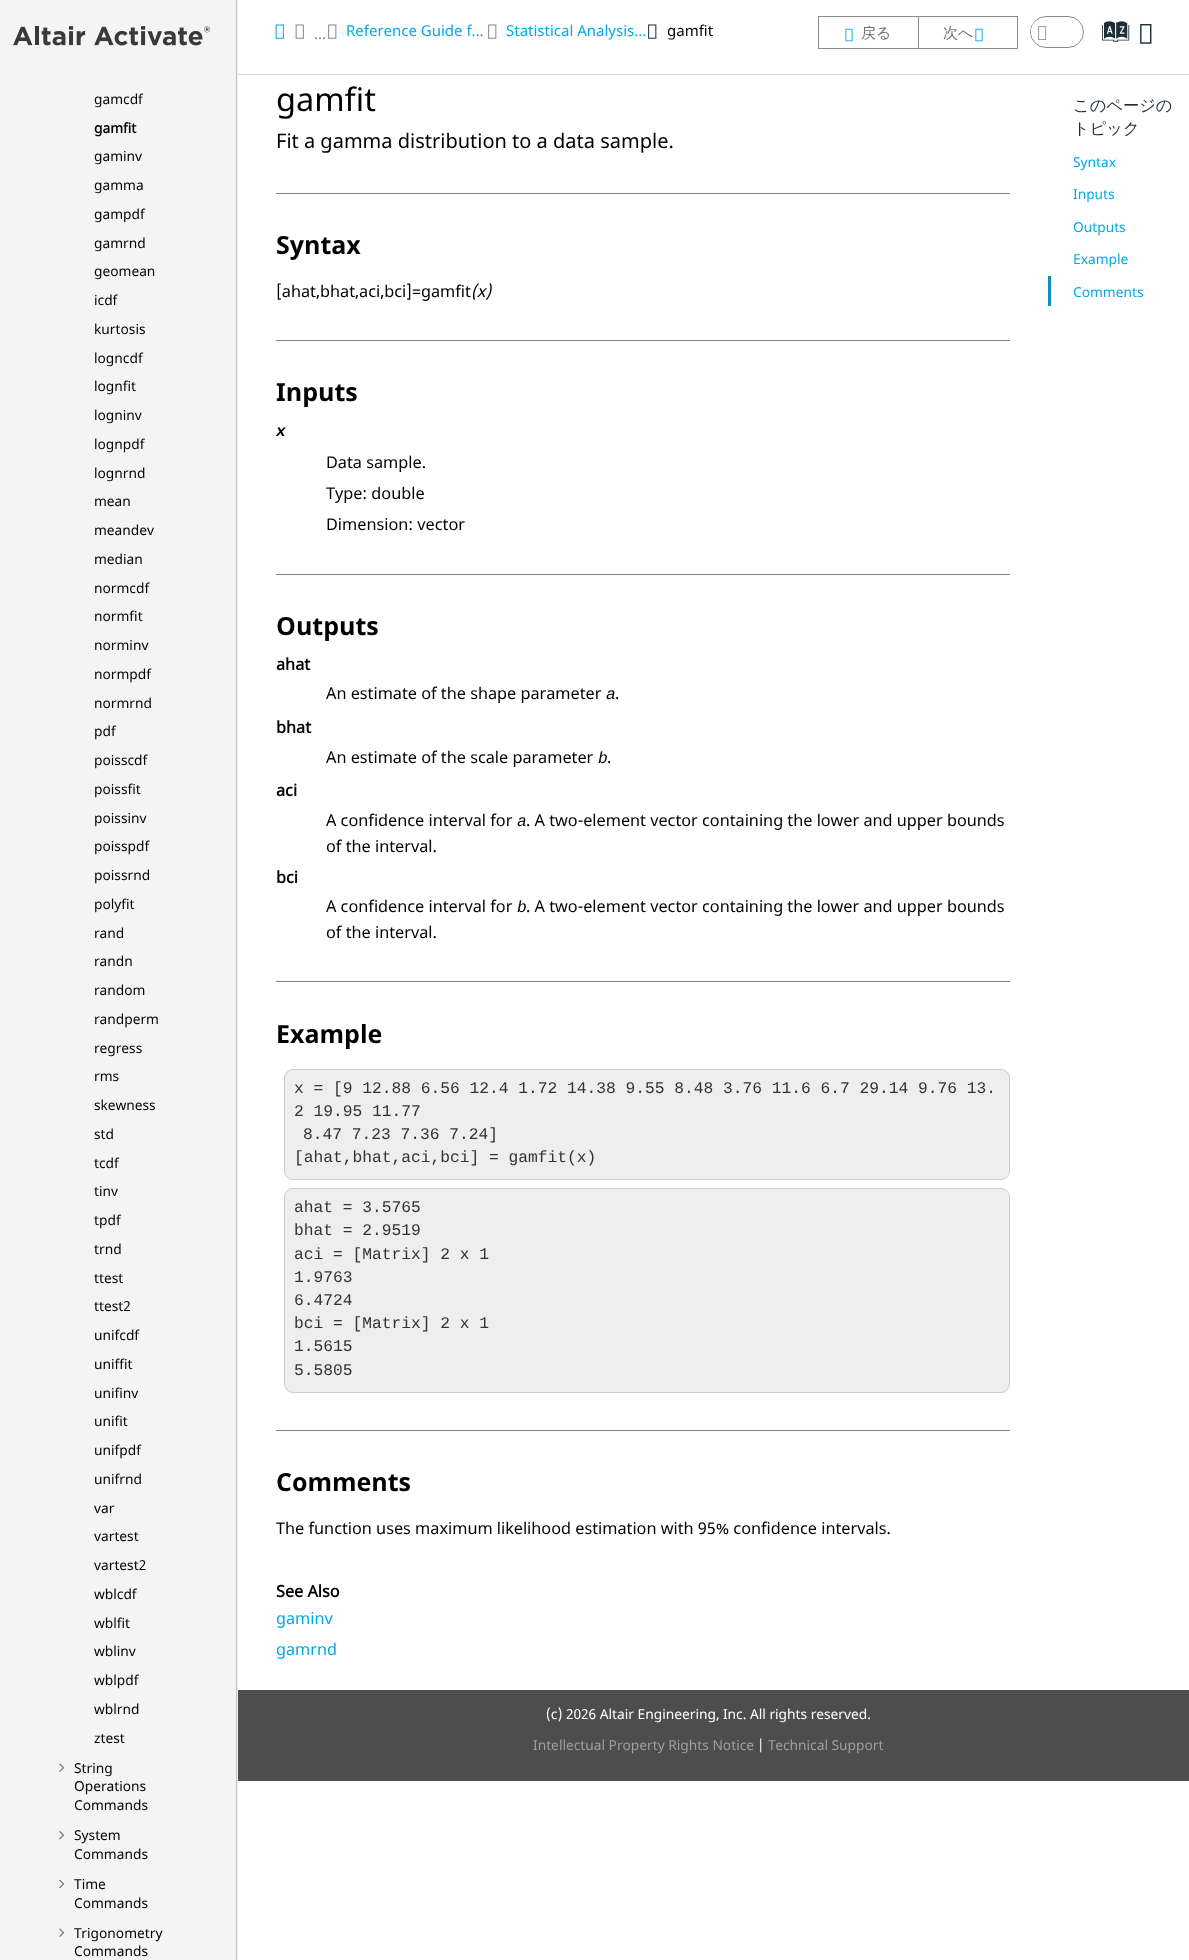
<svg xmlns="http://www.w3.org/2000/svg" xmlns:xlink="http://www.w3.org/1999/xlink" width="1189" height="1960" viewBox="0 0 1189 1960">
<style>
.cls-1{font:13.75px Noto Sans;fill:#000000}
.cls-2{font:bold 13.75px 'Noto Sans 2';fill:#000000}
.cls-3{font:15px Noto Sans;fill:#85898d}
.cls-4{font:15px Noto Sans;fill:#00aae6}
.cls-5{font:15px Noto Sans;fill:#000000}
.cls-6{font:500 15px WenQuanYi Zen Hei;fill:#707070}
.cls-7{font:29px Oxygen;fill:#1d2e38}
.cls-8{font:32.5px Noto Sans;fill:#000000}
.cls-9{font:20px Noto Sans;fill:#000000}
.cls-10{font:bold 25px Noto Sans;fill:#000000}
.cls-11{font:16.25px Noto Sans;fill:#000000}
.cls-12{font:italic 16.25px Noto Sans;fill:#000000}
.cls-13{font:italic bold 16.25px Liberation Mono;fill:#000000}
.cls-14{font:bold 16.25px 'Noto Sans 2';fill:#000000}
.cls-15{font:italic 16.25px Liberation Mono;fill:#000000}
.cls-16{font:16.25px Liberation Mono;fill:#333333}
.cls-17{font:16.25px Noto Sans;fill:#00aae6}
.cls-18{font:500 16.25px WenQuanYi Zen Hei;fill:#1d2e38}
.cls-19{font:13.75px Noto Sans;fill:#00aae6}
.cls-20{font:13.75px Noto Sans;fill:#ffffff}
.cls-21{font:13.75px Noto Sans;fill:#9f9f9f}
</style>
<rect width="100%" height="100%" fill="#ffffff"/>
<rect fill="#f4f4f4" x="0" y="0" width="238" height="1960"/>
<rect fill="#c0c0c0" x="236" y="0" width="1" height="1960"/>
<image xlink:href="image0.png" x="13" y="26" width="198" height="20"/>
<image xlink:href="image1.png" x="58" y="1763" width="7" height="9"/>
<image xlink:href="image2.png" x="58" y="1831" width="7" height="9"/>
<image xlink:href="image3.png" x="58" y="1879" width="7" height="9"/>
<image xlink:href="image1.png" x="58" y="1928" width="7" height="9"/>
<rect fill="#d8d8d8" x="238" y="74" width="951" height="1"/>
<image xlink:href="image4.png" x="275" y="24" width="9" height="15"/>
<image xlink:href="image5.png" x="295" y="24" width="9" height="15"/>
<image xlink:href="image6.png" x="328" y="24" width="9" height="15"/>
<image xlink:href="image6.png" x="488" y="24" width="9" height="15"/>
<image xlink:href="image7.png" x="648" y="24" width="9" height="15"/>
<rect fill="#8b8b8b" x="818" y="16" width="100" height="1"/>
<rect fill="#8b8b8b" x="818" y="48" width="100" height="1"/>
<rect fill="#8b8b8b" x="818" y="16" width="1" height="33"/>
<image xlink:href="image8.png" x="845" y="28" width="8" height="14"/>
<rect fill="none" stroke="#8b8b8b" x="918.5" y="16.5" width="99" height="32"/>
<image xlink:href="image8.png" x="975" y="28" width="8" height="14"/>
<rect fill="none" stroke="#8b8b8b" x="1030.5" y="16.5" width="53" height="31" rx="15.5"/>
<rect fill="#ffffff" x="1031" y="19" width="25" height="24" rx="12"/>
<image xlink:href="image9.png" x="1038" y="26" width="9" height="14"/>
<image xlink:href="image10.png" x="1140" y="24" width="12" height="20"/>
<rect fill="#828282" x="276" y="193" width="734" height="1"/>
<rect fill="#828282" x="276" y="340" width="734" height="1"/>
<rect fill="#828282" x="276" y="574" width="734" height="1"/>
<rect fill="#828282" x="276" y="981" width="734" height="1"/>
<rect fill="#eeeeee" stroke="#cccccc" x="284.5" y="1069.5" width="725" height="110" rx="8.5"/>
<rect fill="#eeeeee" stroke="#cccccc" x="284.5" y="1188.5" width="725" height="204" rx="8.5"/>
<rect fill="#828282" x="276" y="1430" width="734" height="1"/>
<rect fill="#0e8fbc" x="1048" y="276" width="3" height="30"/>
<rect fill="#4d4d4d" x="238" y="1690" width="951" height="91"/>
<text class="cls-1" x="94" y="104">gamcdf</text>
<text class="cls-2" x="94" y="133">gamfit</text>
<text class="cls-1" x="94" y="161">gaminv</text>
<text class="cls-1" x="94" y="190">gamma</text>
<text class="cls-1" x="94" y="219">gampdf</text>
<text class="cls-1" x="94" y="248">gamrnd</text>
<text class="cls-1" x="94" y="276">geomean</text>
<text class="cls-1" x="94" y="305">icdf</text>
<text class="cls-1" x="94" y="334">kurtosis</text>
<text class="cls-1" x="94" y="363">logncdf</text>
<text class="cls-1" x="94" y="391">lognfit</text>
<text class="cls-1" x="94" y="420">logninv</text>
<text class="cls-1" x="94" y="449">lognpdf</text>
<text class="cls-1" x="94" y="478">lognrnd</text>
<text class="cls-1" x="94" y="506">mean</text>
<text class="cls-1" x="94" y="535">meandev</text>
<text class="cls-1" x="94" y="564">median</text>
<text class="cls-1" x="94" y="593">normcdf</text>
<text class="cls-1" x="94" y="621">normfit</text>
<text class="cls-1" x="94" y="650">norminv</text>
<text class="cls-1" x="94" y="679">normpdf</text>
<text class="cls-1" x="94" y="708">normrnd</text>
<text class="cls-1" x="94" y="736">pdf</text>
<text class="cls-1" x="94" y="765">poisscdf</text>
<text class="cls-1" x="94" y="794">poissfit</text>
<text class="cls-1" x="94" y="823">poissinv</text>
<text class="cls-1" x="94" y="851">poisspdf</text>
<text class="cls-1" x="94" y="880">poissrnd</text>
<text class="cls-1" x="94" y="909">polyfit</text>
<text class="cls-1" x="94" y="938">rand</text>
<text class="cls-1" x="94" y="966">randn</text>
<text class="cls-1" x="94" y="995">random</text>
<text class="cls-1" x="94" y="1024">randperm</text>
<text class="cls-1" x="94" y="1053">regress</text>
<text class="cls-1" x="94" y="1081">rms</text>
<text class="cls-1" x="94" y="1110">skewness</text>
<text class="cls-1" x="94" y="1139">std</text>
<text class="cls-1" x="94" y="1168">tcdf</text>
<text class="cls-1" x="94" y="1196">tinv</text>
<text class="cls-1" x="94" y="1225">tpdf</text>
<text class="cls-1" x="94" y="1254">trnd</text>
<text class="cls-1" x="94" y="1283">ttest</text>
<text class="cls-1" x="94" y="1311">ttest2</text>
<text class="cls-1" x="94" y="1340">unifcdf</text>
<text class="cls-1" x="94" y="1369">uniffit</text>
<text class="cls-1" x="94" y="1398">unifinv</text>
<text class="cls-1" x="94" y="1426">unifit</text>
<text class="cls-1" x="94" y="1455">unifpdf</text>
<text class="cls-1" x="94" y="1484">unifrnd</text>
<text class="cls-1" x="94" y="1513">var</text>
<text class="cls-1" x="94" y="1541">vartest</text>
<text class="cls-1" x="94" y="1570">vartest2</text>
<text class="cls-1" x="94" y="1599">wblcdf</text>
<text class="cls-1" x="94" y="1628">wblfit</text>
<text class="cls-1" x="94" y="1656">wblinv</text>
<text class="cls-1" x="94" y="1685">wblpdf</text>
<text class="cls-1" x="94" y="1714">wblrnd</text>
<text class="cls-1" x="94" y="1743">ztest</text>
<text class="cls-1"><tspan x="74" y="1773">String</tspan><tspan x="74" y="1791">Operations</tspan><tspan x="74" y="1810">Commands</tspan></text>
<text class="cls-1"><tspan x="74" y="1840">System</tspan><tspan x="74" y="1859">Commands</tspan></text>
<text class="cls-1"><tspan x="74" y="1889">Time</tspan><tspan x="74" y="1908">Commands</tspan></text>
<text class="cls-1"><tspan x="74" y="1938">Trigonometry</tspan><tspan x="74" y="1956">Commands</tspan></text>
<text class="cls-3" x="314" y="39">...</text>
<text class="cls-4" x="346" y="36">Reference Guide f…</text>
<text class="cls-4" x="506" y="36">Statistical Analysis…</text>
<text class="cls-5" x="667" y="36">gamfit</text>
<text class="cls-6" x="861" y="38">戻る</text>
<text class="cls-6" x="943" y="38">次へ</text>
<text class="cls-7" x="1105" y="45">a</text>
<text class="cls-8" x="276" y="111">gamfit</text>
<text class="cls-9" x="276" y="148">Fit a gamma distribution to a data sample.</text>
<text class="cls-10" x="276" y="254">Syntax</text>
<text class="cls-11" x="276" y="297">[ahat,bhat,aci,bci]=gamfit</text>
<text class="cls-12" x="471" y="297">(x)</text>
<text class="cls-10" x="276" y="401">Inputs</text>
<text class="cls-13" x="276" y="436">x</text>
<text class="cls-11"><tspan x="326" y="468">Data sample.</tspan><tspan x="326" y="499">Type: double</tspan><tspan x="326" y="530">Dimension: vector</tspan></text>
<text class="cls-10" x="276" y="635">Outputs</text>
<text class="cls-14" x="276" y="670">ahat</text>
<text class="cls-11" x="326" y="699">An estimate of the shape parameter</text>
<text class="cls-15" x="606" y="699">a</text>
<text class="cls-11" x="615" y="699">.</text>
<text class="cls-14" x="276" y="733">bhat</text>
<text class="cls-11" x="326" y="763">An estimate of the scale parameter</text>
<text class="cls-15" x="598" y="763">b</text>
<text class="cls-11" x="607" y="763">.</text>
<text class="cls-14" x="276" y="796">aci</text>
<text class="cls-11" x="326" y="826">A confidence interval for</text>
<text class="cls-15" x="517" y="826">a</text>
<text class="cls-11" x="526" y="826">. A two-element vector containing the lower and upper bounds</text>
<text class="cls-11" x="326" y="852">of the interval.</text>
<text class="cls-14" x="276" y="883">bci</text>
<text class="cls-11" x="326" y="912">A confidence interval for</text>
<text class="cls-15" x="517" y="912">b</text>
<text class="cls-11" x="526" y="912">. A two-element vector containing the lower and upper bounds</text>
<text class="cls-11" x="326" y="938">of the interval.</text>
<text class="cls-10" x="276" y="1043">Example</text>
<text class="cls-16"><tspan x="294" y="1093">x = [9 12.88 6.56 12.4 1.72 14.38 9.55 8.48 3.76 11.6 6.7 29.14 9.76 13.</tspan><tspan x="294" y="1116">2 19.95 11.77</tspan></text>
<text class="cls-16" x="303" y="1139">8.47 7.23 7.36 7.24]</text>
<text class="cls-16" x="294" y="1162">[ahat,bhat,aci,bci] = gamfit(x)</text>
<text class="cls-16"><tspan x="294" y="1212">ahat = 3.5765</tspan><tspan x="294" y="1235">bhat = 2.9519</tspan><tspan x="294" y="1259">aci = [Matrix] 2 x 1</tspan><tspan x="294" y="1282">1.9763</tspan><tspan x="294" y="1305">6.4724</tspan><tspan x="294" y="1328">bci = [Matrix] 2 x 1</tspan><tspan x="294" y="1351">1.5615</tspan><tspan x="294" y="1375">5.5805</tspan></text>
<text class="cls-10" x="276" y="1491">Comments</text>
<text class="cls-11" x="276" y="1534">The function uses maximum likelihood estimation with 95% confidence intervals.</text>
<text class="cls-14" x="276" y="1597">See Also</text>
<text class="cls-17"><tspan x="276" y="1624">gaminv</tspan><tspan x="276" y="1655">gamrnd</tspan></text>
<text class="cls-18"><tspan x="1073" y="111">このページの</tspan><tspan x="1073" y="134">トピック</tspan></text>
<text class="cls-19" x="1073" y="167">Syntax</text>
<text class="cls-19" x="1073" y="199">Inputs</text>
<text class="cls-19" x="1073" y="232">Outputs</text>
<text class="cls-19" x="1073" y="264">Example</text>
<text class="cls-19" x="1073" y="297">Comments</text>
<text class="cls-20" x="546" y="1719">(c) 2026 Altair Engineering, Inc. All rights reserved.</text>
<text class="cls-21" x="533" y="1750">Intellectual Property Rights Notice</text>
<text class="cls-20" x="757" y="1750">|</text>
<text class="cls-21" x="768" y="1750">Technical Support</text>
</svg>
